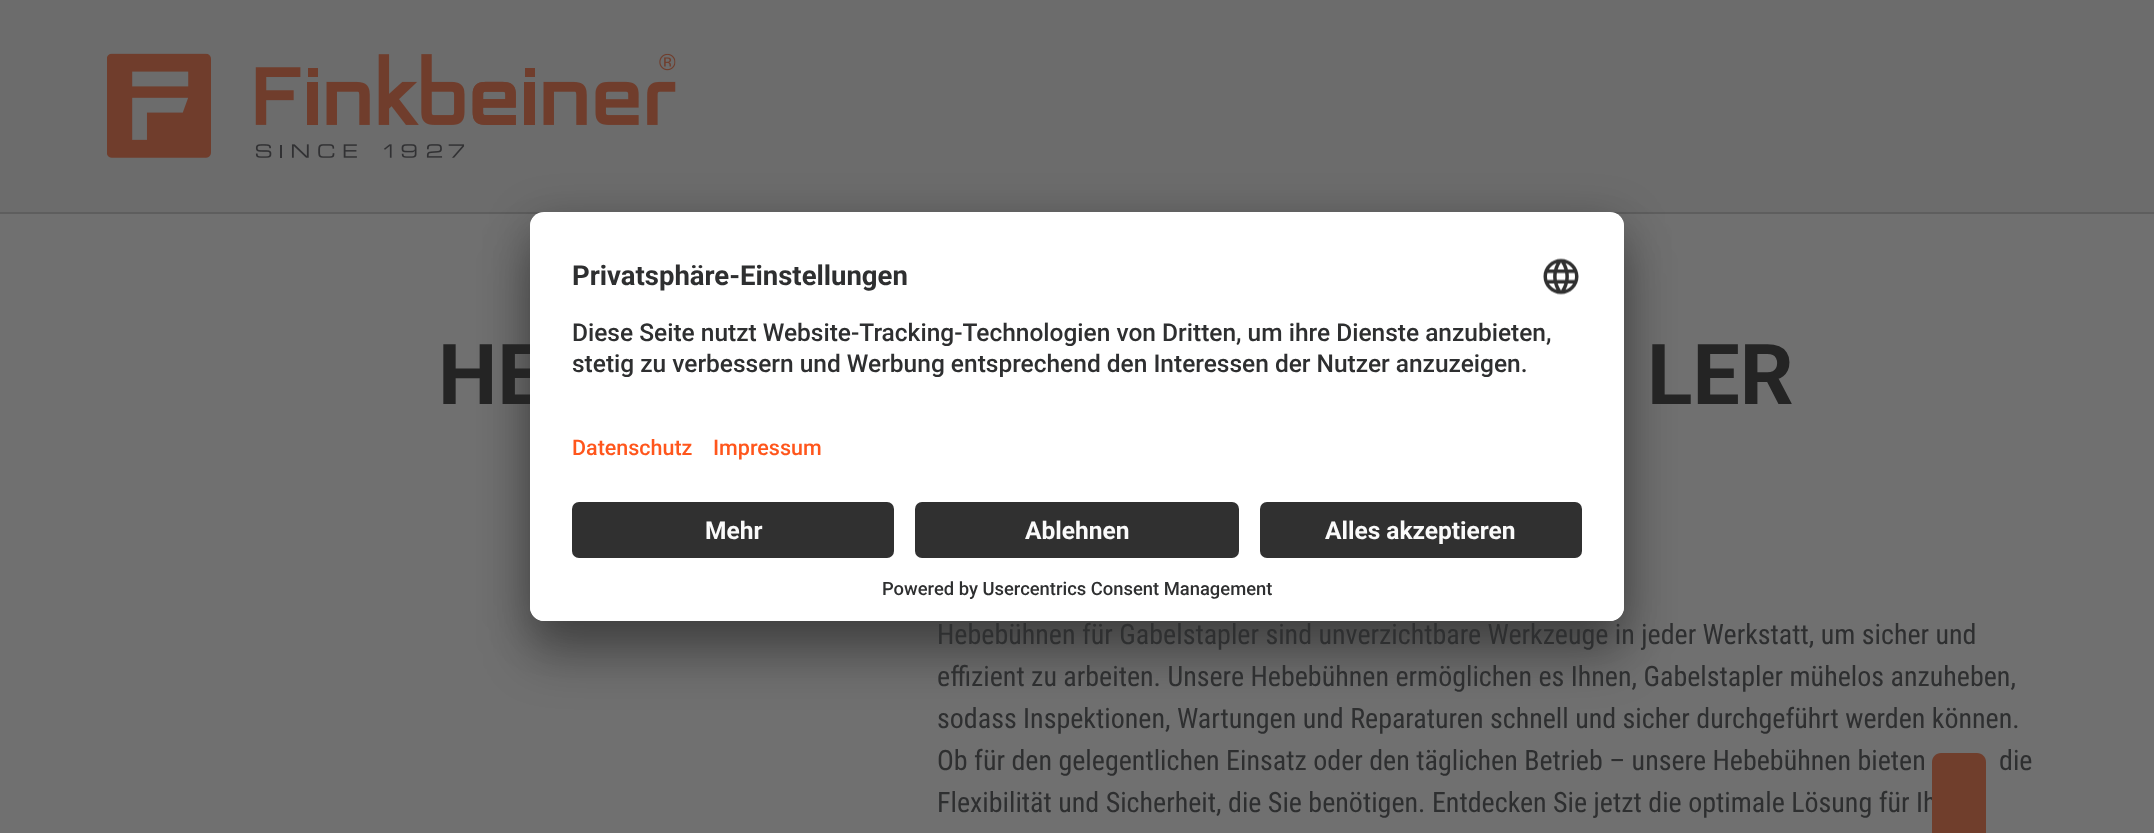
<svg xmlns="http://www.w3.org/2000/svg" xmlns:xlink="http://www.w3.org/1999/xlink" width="2154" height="833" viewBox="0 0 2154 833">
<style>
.cls-1{font:bold 84px Roboto;fill:#242424}
.cls-2{font:500 21.5px Roboto;fill:#ff561c}
.cls-3{font:bold 27.5px Roboto;fill:#2e2f30}
.cls-4{font:500 24.5px Roboto;fill:#2e2f30}
.cls-5{font:500 18.4px Roboto;fill:#2e2f30}
.cls-6{font:bold 24.5px Roboto;fill:#fafafa}
.cls-7{font:28px Roboto Condensed;fill:#2e2f30}
</style>
<defs>
<clipPath id="clip1"><rect x="530" y="212" width="1094" height="409" rx="14"/></clipPath>
<clipPath id="clip2"><path d="M544 212H1610C1617.5 212 1624 218.5 1624 226V488H530V226C530 218.5 536.5 212 544 212Z"/></clipPath>
</defs>
<rect width="100%" height="100%" fill="#707070"/>
<rect fill="#6c6c6c" x="0" y="0" width="2154" height="212"/>
<rect fill="#5e5e5e" x="0" y="212" width="2154" height="2"/>
<rect fill="#000000" fill-opacity="0.3" filter="blur(24.5px)" x="530" y="247" width="1094" height="409" rx="14"/>
<image xlink:href="image1.png" x="107" y="53" width="569" height="105"/>
<rect fill="#000000" fill-opacity="0.22" filter="blur(23px)" x="530" y="221" width="1094" height="409" rx="14"/>
<text class="cls-1" x="438" y="404">HE</text>
<rect fill="#ffffff" x="530" y="212" width="1094" height="409" rx="14"/>
<g clip-path="url(#clip1)">
<g clip-path="url(#clip2)">
<rect fill="#ffffff" x="530" y="214" width="1094" height="274"/>
</g>
</g>
<image xlink:href="image0.png" x="1543" y="258" width="36" height="37"/>
<text class="cls-2" x="713" y="455">Impressum</text>
<text class="cls-2" x="572" y="455">Datenschutz</text>
<text class="cls-3" x="572" y="285">Privatsphäre-Einstellungen</text>
<text class="cls-4" x="572" y="372">stetig zu verbessern und Werbung entsprechend den Interessen der Nutzer anzuzeigen.</text>
<text class="cls-4" x="572" y="341">Diese Seite nutzt Website-Tracking-Technologien von Dritten, um ihre Dienste anzubieten,</text>
<path fill="#ffffff" d="M530 488H1624V607C1624 614.5 1617.5 621 1610 621H544C536.5 621 530 614.5 530 607Z"/>
<text class="cls-5" x="882" y="595">Powered by Usercentrics Consent Management</text>
<rect fill="#303030" x="1260" y="502" width="322" height="56" rx="7"/>
<text class="cls-6" x="1325" y="539">Alles akzeptieren</text>
<rect fill="#303030" x="915" y="502" width="324" height="56" rx="7"/>
<text class="cls-6" x="1025" y="539">Ablehnen</text>
<rect fill="#303030" x="572" y="502" width="322" height="56" rx="7"/>
<text class="cls-6" x="705" y="539">Mehr</text>
<text class="cls-1" x="1647" y="404">LER</text>
<text class="cls-7"><tspan x="937" y="644">Hebebühnen für Gabelstapler sind unverzichtbare Werkzeuge in jeder Werkstatt, um sicher und</tspan><tspan x="937" y="686">effizient zu arbeiten. Unsere Hebebühnen ermöglichen es Ihnen, Gabelstapler mühelos anzuheben,</tspan><tspan x="937" y="728">sodass Inspektionen, Wartungen und Reparaturen schnell und sicher durchgeführt werden können.</tspan><tspan x="937" y="770">Ob für den gelegentlichen Einsatz oder den täglichen Betrieb – unsere Hebebühnen bieten</tspan></text>
<text class="cls-7" x="1999" y="770">die</text>
<text class="cls-7" x="937" y="812">Flexibilität und Sicherheit, die Sie benötigen. Entdecken Sie jetzt die optimale Lösung für Ih</text>
<path fill="#703e2c" d="M1941 753H1977C1982 753 1986 757 1986 762V833H1932V762C1932 757 1936 753 1941 753Z"/>
</svg>
